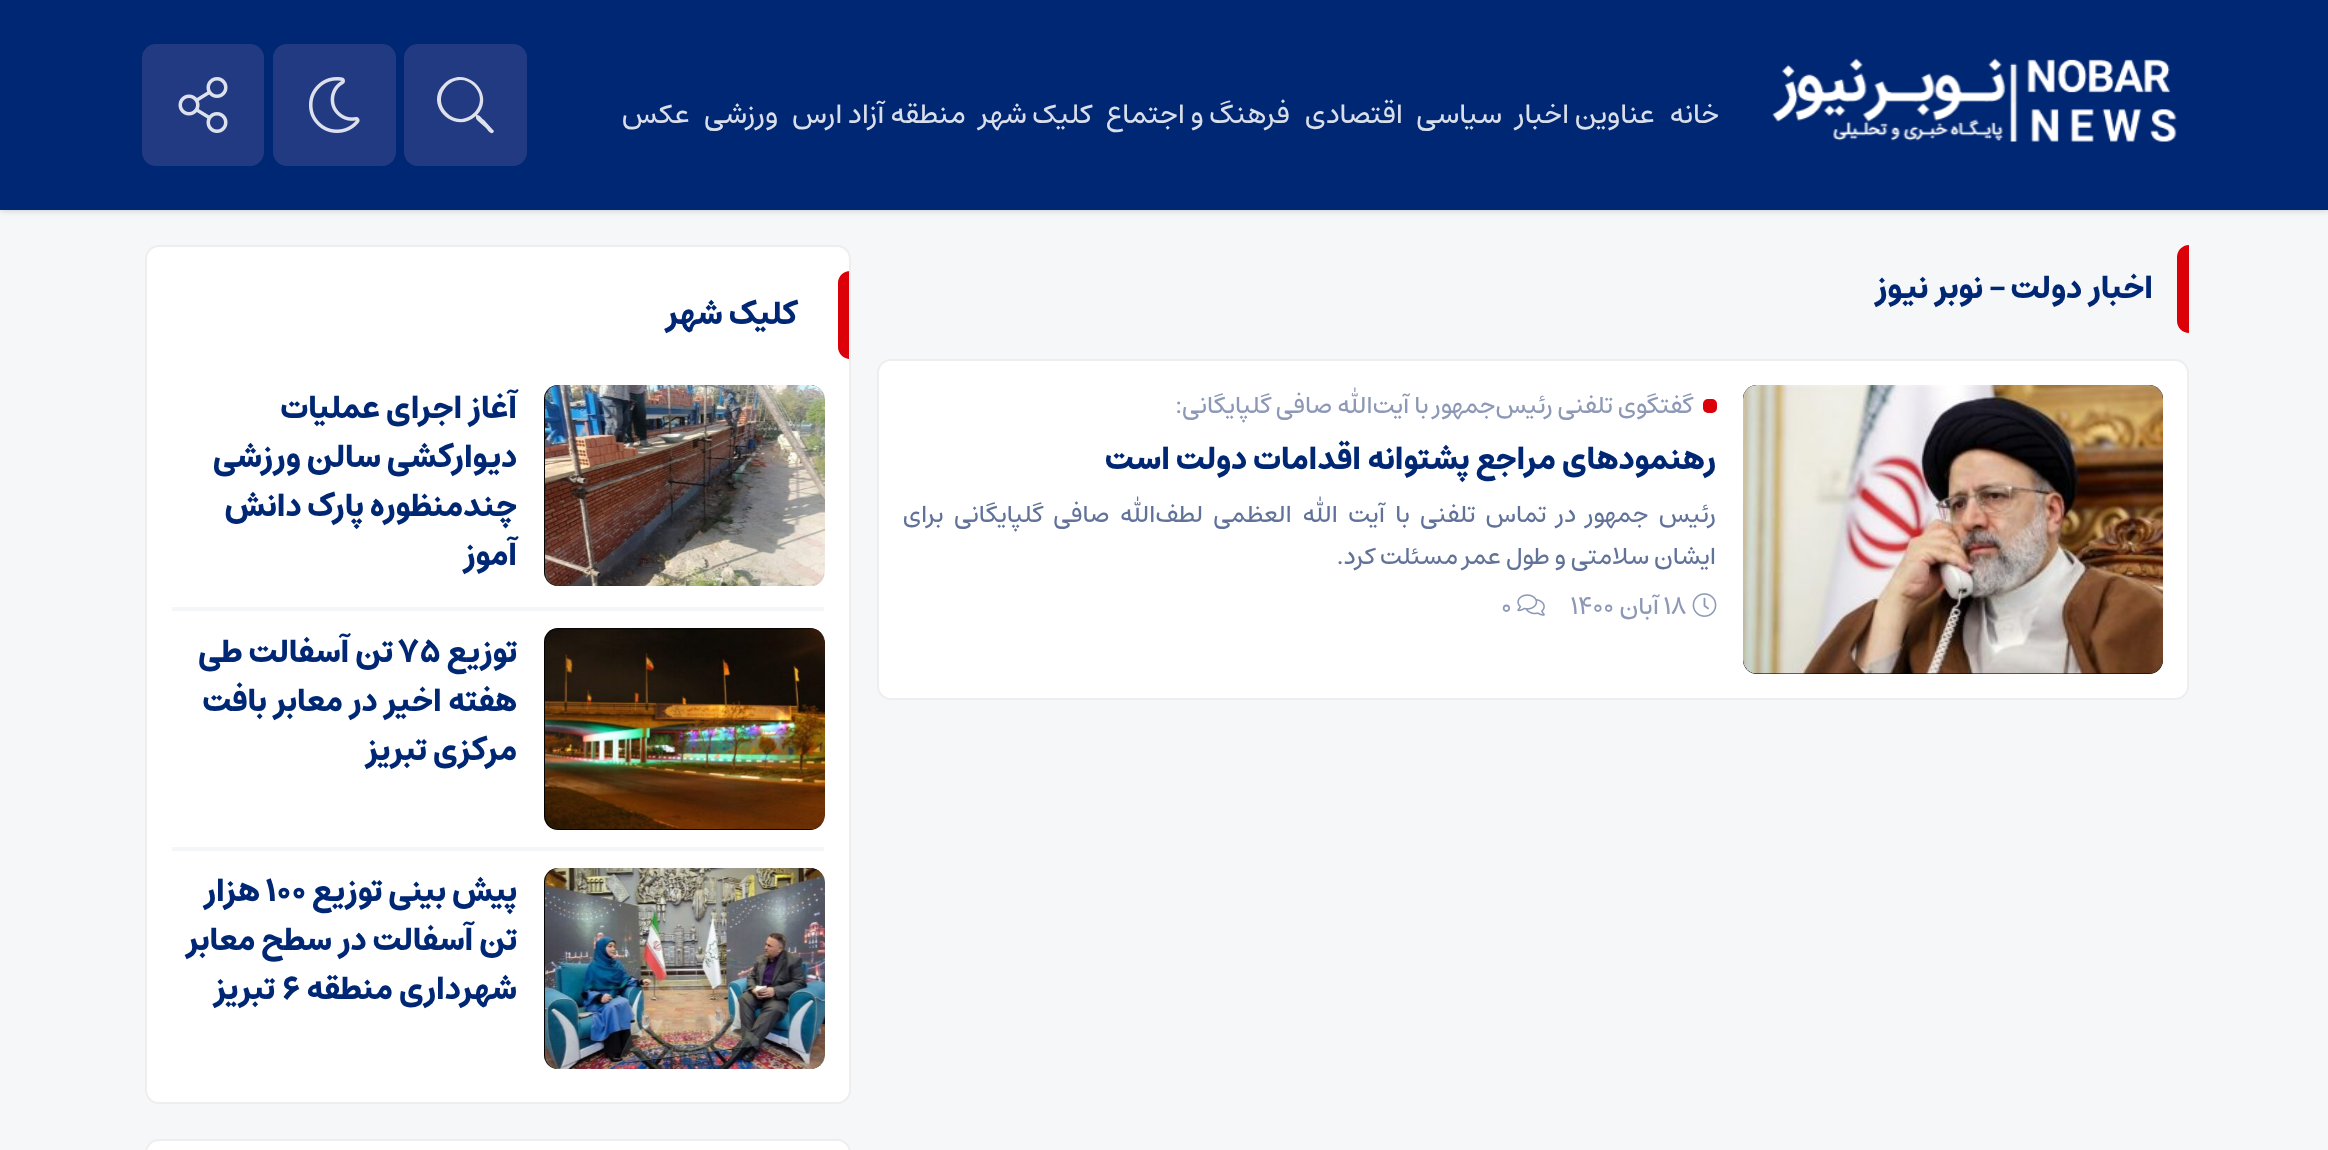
<svg xmlns="http://www.w3.org/2000/svg" xmlns:xlink="http://www.w3.org/1999/xlink" width="2328" height="1150" viewBox="0 0 2328 1150">
<style>
.cls-1{font:500 28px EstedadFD;direction:rtl;fill:#d9dfea}
.cls-2{font:bold 31.5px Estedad;direction:rtl;fill:#002773}
.cls-3{font:500 24.5px EstedadFD;direction:rtl;fill:#8c98b5}
.cls-4{font:500 24.5px EstedadFD;direction:rtl;fill:#617299}
.cls-5{font:500 24.5px EstedadFD;fill:#8c98b5}
.cls-6{font:bold 31.5px Estedad;fill:#002773}
</style>
<rect width="100%" height="100%" fill="#f6f7f9"/>
<rect fill="#000000" fill-opacity="0.2" filter="blur(3.5px)" x="0" y="0" width="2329" height="210"/>
<rect fill="#002773" x="0" y="0" width="2328" height="210"/>
<image xlink:href="image0.png" x="1772" y="58" width="405" height="84"/>
<rect fill="#223a81" x="404" y="44" width="123" height="122" rx="14"/>
<path fill="#dee1ec" d="M493 130L494 131C492 137 487 129 486 128L478 121C476 119 476 119 476 116C454 136 423 104 444 84C465 63 497 94 477 115C480 115 481 118 484 120ZM447 113C465 131 492 104 474 86C456 68 429 95 447 113Z"/>
<rect fill="#223a81" x="273" y="44" width="123" height="122" rx="14"/>
<image xlink:href="image1.png" x="309" y="77" width="51" height="56"/>
<rect fill="#223a81" x="142" y="44" width="122" height="122" rx="14"/>
<image xlink:href="image2.png" x="178" y="77" width="50" height="56"/>
<path fill="#dc0008" d="M2189 245V333C2182.5 333 2177 327.5 2177 321V257C2177 250.5 2182.5 245 2189 245Z"/>
<rect fill="#ffffff" stroke="#eeeeee" stroke-width="2" x="878" y="360" width="1310" height="339" rx="13"/>
<rect fill="#000000" x="1743" y="385" width="420" height="289" rx="14"/>
<image xlink:href="image3.png" x="1743" y="385" width="420" height="289"/>
<rect fill="#dc0008" x="1703" y="399" width="14" height="14" rx="5"/>
<image xlink:href="image4.png" x="1692" y="593" width="25" height="24"/>
<image xlink:href="image5.png" x="1517" y="594" width="28" height="22"/>
<rect fill="#ffffff" stroke="#eeeeee" stroke-width="2" x="146" y="246" width="704" height="857" rx="13"/>
<path fill="#dc0008" d="M850 271H849V359H850C843.5 359 838 353.5 838 347V283C838 276.5 843.5 271 850 271Z"/>
<rect fill="#f5f6f8" x="172" y="607" width="652" height="4"/>
<rect fill="#000000" x="544" y="385" width="280" height="201" rx="14"/>
<image xlink:href="image6.png" x="545" y="385" width="280" height="201"/>
<rect fill="#f5f6f8" x="172" y="847" width="652" height="4"/>
<rect fill="#000000" x="544" y="628" width="280" height="202" rx="14"/>
<image xlink:href="image7.png" x="545" y="628" width="280" height="202"/>
<rect fill="#000000" x="544" y="868" width="280" height="201" rx="14"/>
<image xlink:href="image8.png" x="545" y="868" width="280" height="201"/>
<rect fill="#ffffff" stroke="#eeeeee" stroke-width="2" x="146" y="1140" width="704" height="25" rx="13"/>
<text class="cls-1" x="1719" y="123">خانه</text>
<text class="cls-1" x="1655" y="123">عناوین اخبار</text>
<text class="cls-1" x="1502" y="123">سیاسی</text>
<text class="cls-1" x="1403" y="123">اقتصادی</text>
<text class="cls-1" x="1290" y="123">فرهنگ و اجتماع</text>
<text class="cls-1" x="1092" y="123">کلیک شهر</text>
<text class="cls-1" x="966" y="123">منطقه آزاد ارس</text>
<text class="cls-1" x="778" y="123">ورزشی</text>
<text class="cls-1" x="690" y="123">عکس</text>
<text class="cls-2" x="2153" y="298">اخبار دولت – نوبر نیوز</text>
<text class="cls-3" x="1693" y="413">گفتگوی تلفنی رئیس‌جمهور با آیت‌الله صافی گلپایگانی:</text>
<text class="cls-2" x="1716" y="469">رهنمودهای مراجع پشتوانه اقدامات دولت است</text>
<text class="cls-4"><tspan x="1716" y="522" word-spacing="5.5">رئیس جمهور در تماس تلفنی با آیت الله العظمی لطف‌الله صافی گلپایگانی برای</tspan><tspan x="1716" y="564">ایشان سلامتی و طول عمر مسئلت کرد.</tspan></text>
<text class="cls-5" x="1663" y="614">۱۸</text>
<text class="cls-3" x="1659" y="614">آبان</text>
<text class="cls-5" x="1570" y="614">۱۴۰۰</text>
<text class="cls-5" x="1501" y="614">۰</text>
<text class="cls-2" x="797" y="324">کلیک شهر</text>
<text class="cls-2"><tspan x="517" y="418">آغاز اجرای عملیات</tspan><tspan x="517" y="467">دیوارکشی سالن ورزشی</tspan><tspan x="517" y="516">چندمنظوره پارک دانش</tspan><tspan x="517" y="565">آموز</tspan></text>
<text class="cls-2" x="517" y="662">توزیع</text>
<text class="cls-6" x="399" y="662">۷۵</text>
<text class="cls-2" x="393" y="662">تن آسفالت طی</text>
<text class="cls-2"><tspan x="517" y="711">هفته اخیر در معابر بافت</tspan><tspan x="517" y="760">مرکزی تبریز</tspan></text>
<text class="cls-2" x="517" y="901">پیش بینی توزیع</text>
<text class="cls-6" x="266" y="901">۱۰۰</text>
<text class="cls-2" x="260" y="901">هزار</text>
<text class="cls-2"><tspan x="517" y="950">تن آسفالت در سطح معابر</tspan><tspan x="517" y="999">شهرداری منطقه</tspan></text>
<text class="cls-6" x="282" y="999">۶</text>
<text class="cls-2" x="275" y="999">تبریز</text>
</svg>
